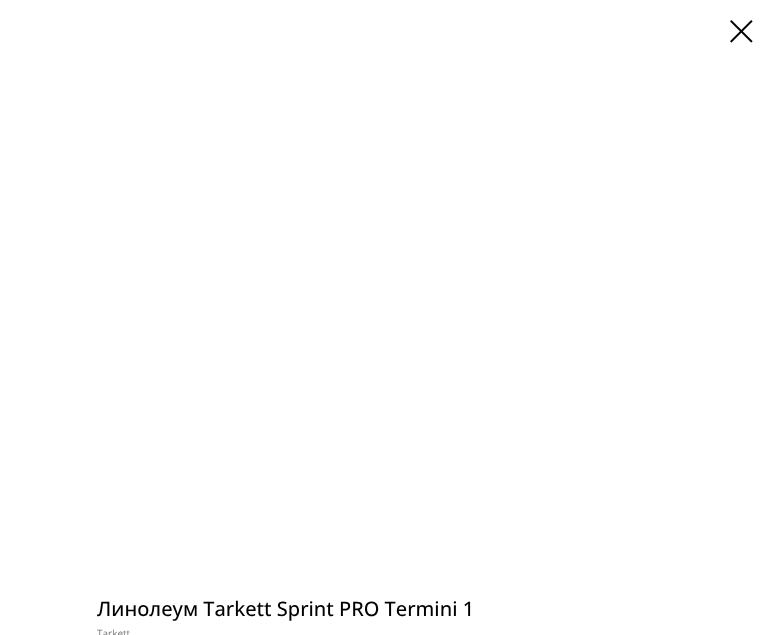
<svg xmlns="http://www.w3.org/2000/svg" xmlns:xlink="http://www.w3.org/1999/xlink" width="773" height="635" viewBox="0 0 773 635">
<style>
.cls-1{font:500 20px Open Sans;fill:#000000}
.cls-2{font:10px Open Sans;fill:#777777}
</style>
<rect width="100%" height="100%" fill="#ffffff"/>
<image xlink:href="image0.png" x="730" y="20" width="23" height="23"/>
<text class="cls-1" x="97" y="616">Линолеум Tarkett Sprint PRO Termini 1</text>
<text class="cls-2" x="97" y="637">Tarkett</text>
</svg>
